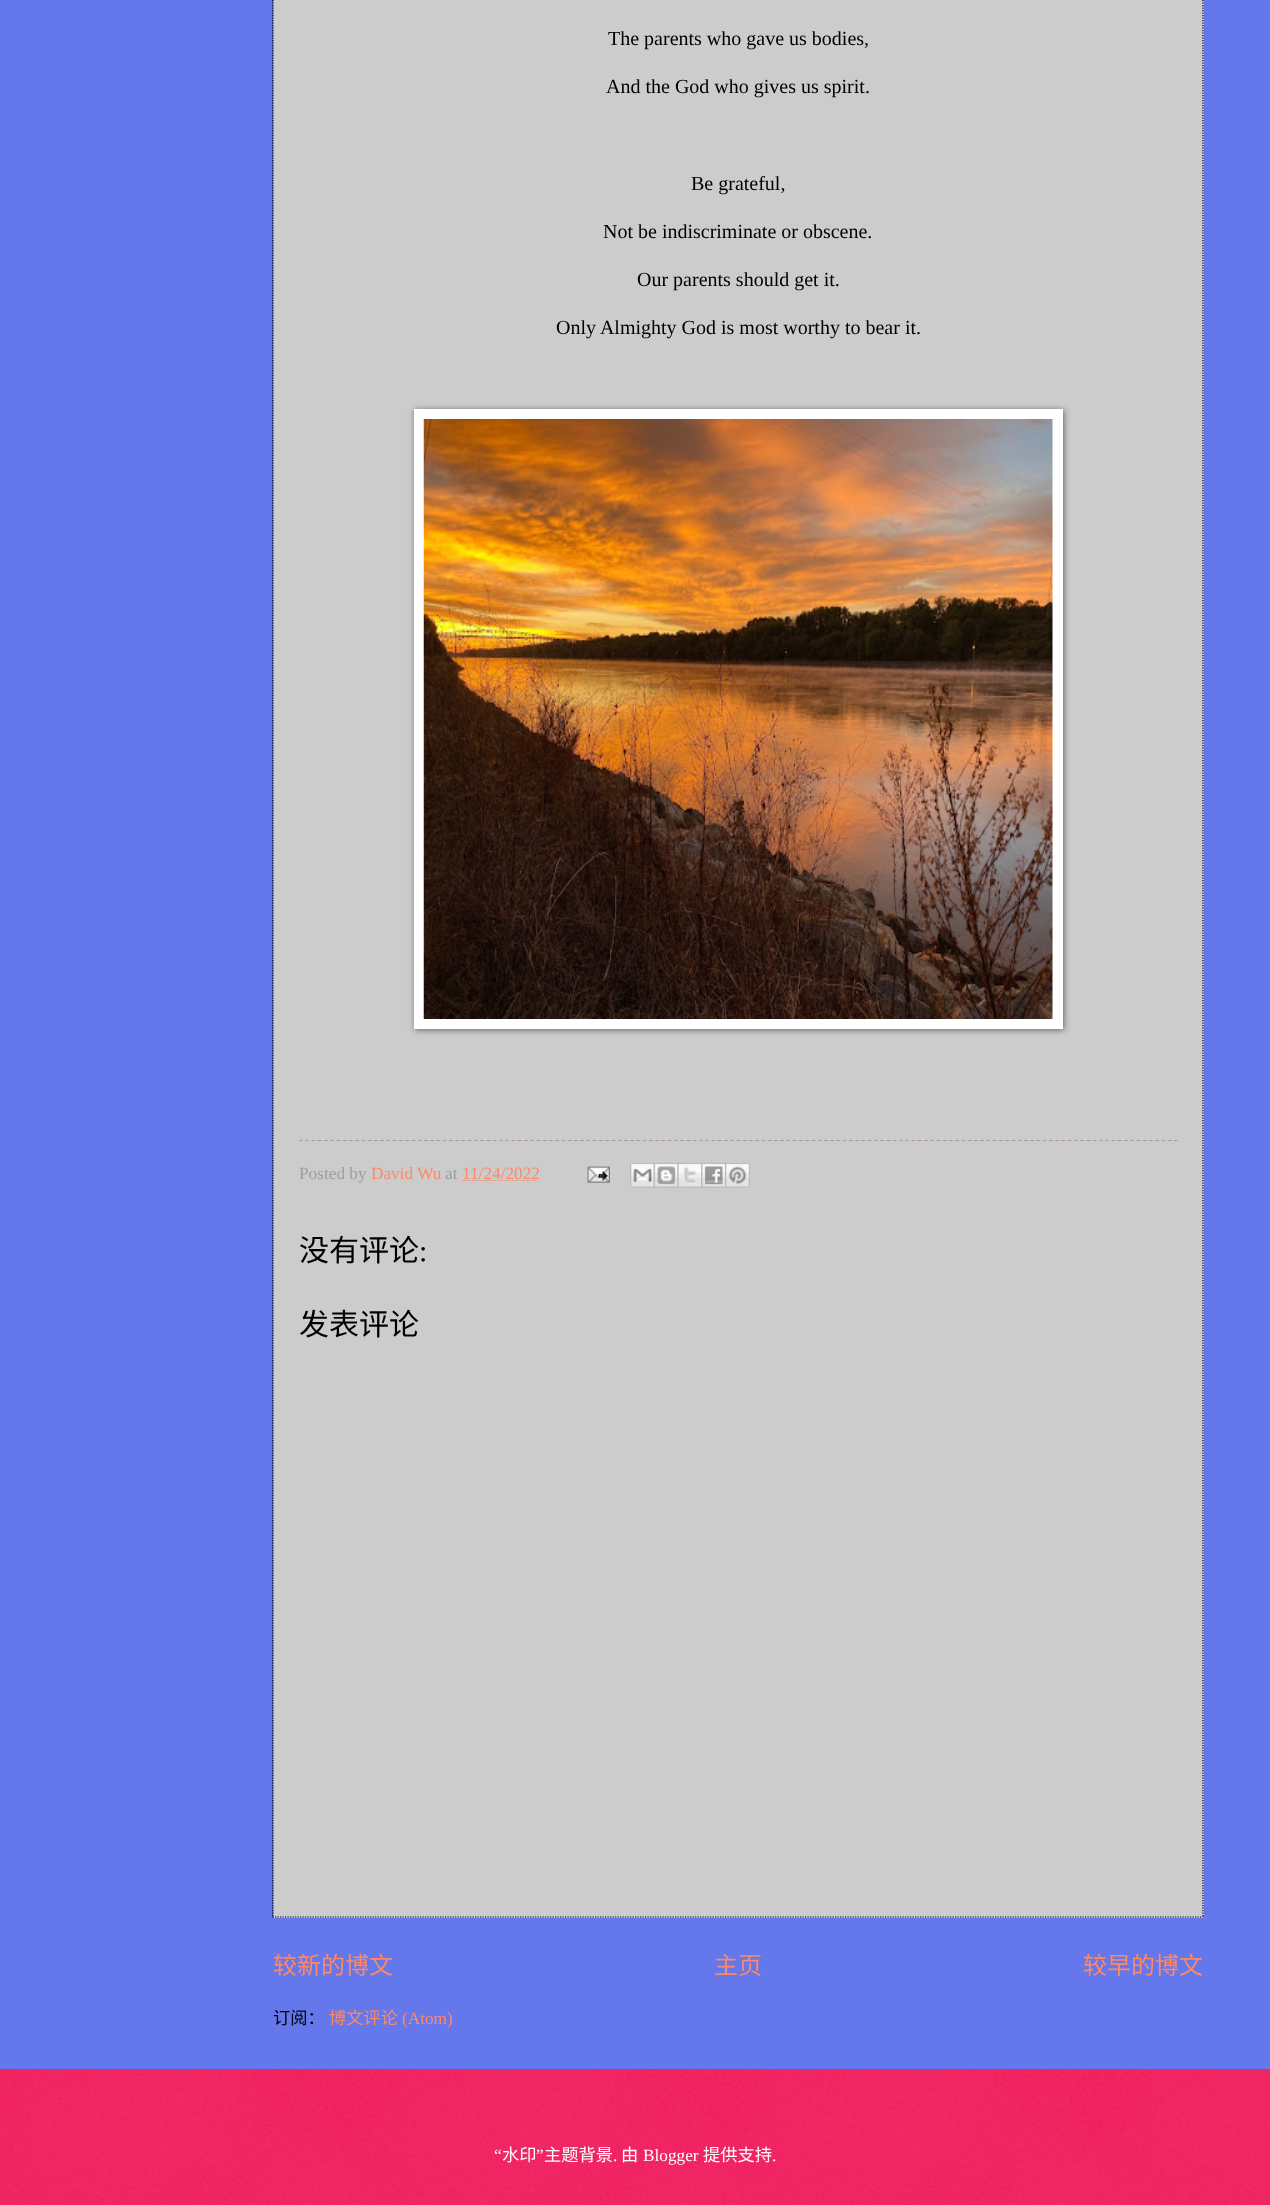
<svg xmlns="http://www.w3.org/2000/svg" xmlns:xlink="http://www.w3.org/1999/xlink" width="1270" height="2205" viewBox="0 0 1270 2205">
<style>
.cls-1{font:20px Liberation Serif;fill:#000000}
.cls-2{font:17.25px Liberation Serif;fill:#9e9e9e}
.cls-3{font:17.25px Liberation Serif;fill:#ff8866}
.cls-4{font:30px Noto Sans CJK SC;fill:#000000}
.cls-5{font:30px Liberation Serif;fill:#000000}
.cls-6{font:24px Noto Sans CJK SC;fill:#ff8866}
.cls-7{font:17.25px Noto Sans CJK SC;fill:#000000}
.cls-8{font:17.25px Noto Sans CJK SC;fill:#ff8866}
.cls-9{font:17.25px Liberation Serif;fill:#ffffff}
.cls-10{font:17.25px Noto Sans CJK SC;fill:#ffffff}
</style>
<rect width="100%" height="100%" fill="#6477eb"/>
<rect fill="#505fbc" x="272" y="0" width="1" height="1918"/>
<rect fill="#cccccc" x="273" y="0" width="931" height="1918"/>
<path fill="none" stroke="#000000" stroke-width="1.2" stroke-dasharray="1.25 1.25" d="M1203-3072.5V1917.5"/>
<path fill="none" stroke="#000000" stroke-width="1.2" stroke-dasharray="1.25 1.25" d="M272.5 1917H1204"/>
<path fill="none" stroke="#000000" stroke-width="1.2" stroke-dasharray="1.25 1.25" d="M273-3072.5V1917.5"/>
<rect fill="#000000" fill-opacity="0.5" filter="blur(3px)" x="415" y="410" width="649" height="620"/>
<rect fill="#ffffff" x="414" y="409" width="649" height="620"/>
<image xlink:href="image0.png" x="423" y="419" width="630" height="600"/>
<path fill="none" stroke="#af9994" stroke-width="1.2" stroke-dasharray="3.75 2.5" d="M299 1140.5H1177.5"/>
<path fill="none" stroke="#ff8866" stroke-width="1.2" stroke-dasharray="1.25 1.25" d="M462 1180.5H540"/>
<image xlink:href="image1.png" x="587" y="1166" width="23" height="17"/>
<image xlink:href="image2.png" x="630" y="1162" width="25" height="26"/>
<image xlink:href="image3.png" x="653" y="1162" width="26" height="26"/>
<image xlink:href="image4.png" x="677" y="1162" width="26" height="26"/>
<image xlink:href="image5.png" x="701" y="1162" width="26" height="26"/>
<image xlink:href="image6.png" x="725" y="1162" width="25" height="26"/>
<rect fill="#ee0049" x="0" y="2069" width="1270" height="136"/>
<image xlink:href="image7.png" x="0" y="2069" width="1270" height="136"/>
<text class="cls-1" x="608" y="45">The parents who gave us bodies,</text>
<text class="cls-1" x="606" y="93">And the God who gives us spirit.</text>
<text class="cls-1" x="691" y="190">Be grateful,</text>
<text class="cls-1" x="603" y="238">Not be indiscriminate or obscene.</text>
<text class="cls-1" x="637" y="286">Our parents should get it.</text>
<text class="cls-1" x="556" y="334">Only Almighty God is most worthy to bear it.</text>
<text class="cls-2" x="299" y="1179">Posted by</text>
<text class="cls-3" x="371" y="1179">David Wu</text>
<text class="cls-2" x="445" y="1179">at</text>
<text class="cls-3" x="462" y="1179">11/24/2022</text>
<text class="cls-4" x="299" y="1261">没有评论</text>
<text class="cls-5" x="419" y="1261">:</text>
<text class="cls-4" x="299" y="1335">发表评论</text>
<text class="cls-6" x="273" y="1974">较新的博文</text>
<text class="cls-6" x="714" y="1974">主页</text>
<text class="cls-6" x="1083" y="1974">较早的博文</text>
<text class="cls-7" x="273" y="2024">订阅：</text>
<text class="cls-8" x="329" y="2024">博文评论</text>
<text class="cls-3" x="402" y="2024">(Atom)</text>
<text class="cls-9" x="494" y="2161">“</text>
<text class="cls-10" x="502" y="2161">水印</text>
<text class="cls-9" x="536" y="2161">”</text>
<text class="cls-10" x="544" y="2161">主题背景</text>
<text class="cls-9" x="613" y="2161">.</text>
<text class="cls-10" x="621" y="2161">由</text>
<text class="cls-9" x="643" y="2161">Blogger</text>
<text class="cls-10" x="703" y="2161">提供支持</text>
<text class="cls-9" x="772" y="2161">.</text>
</svg>
